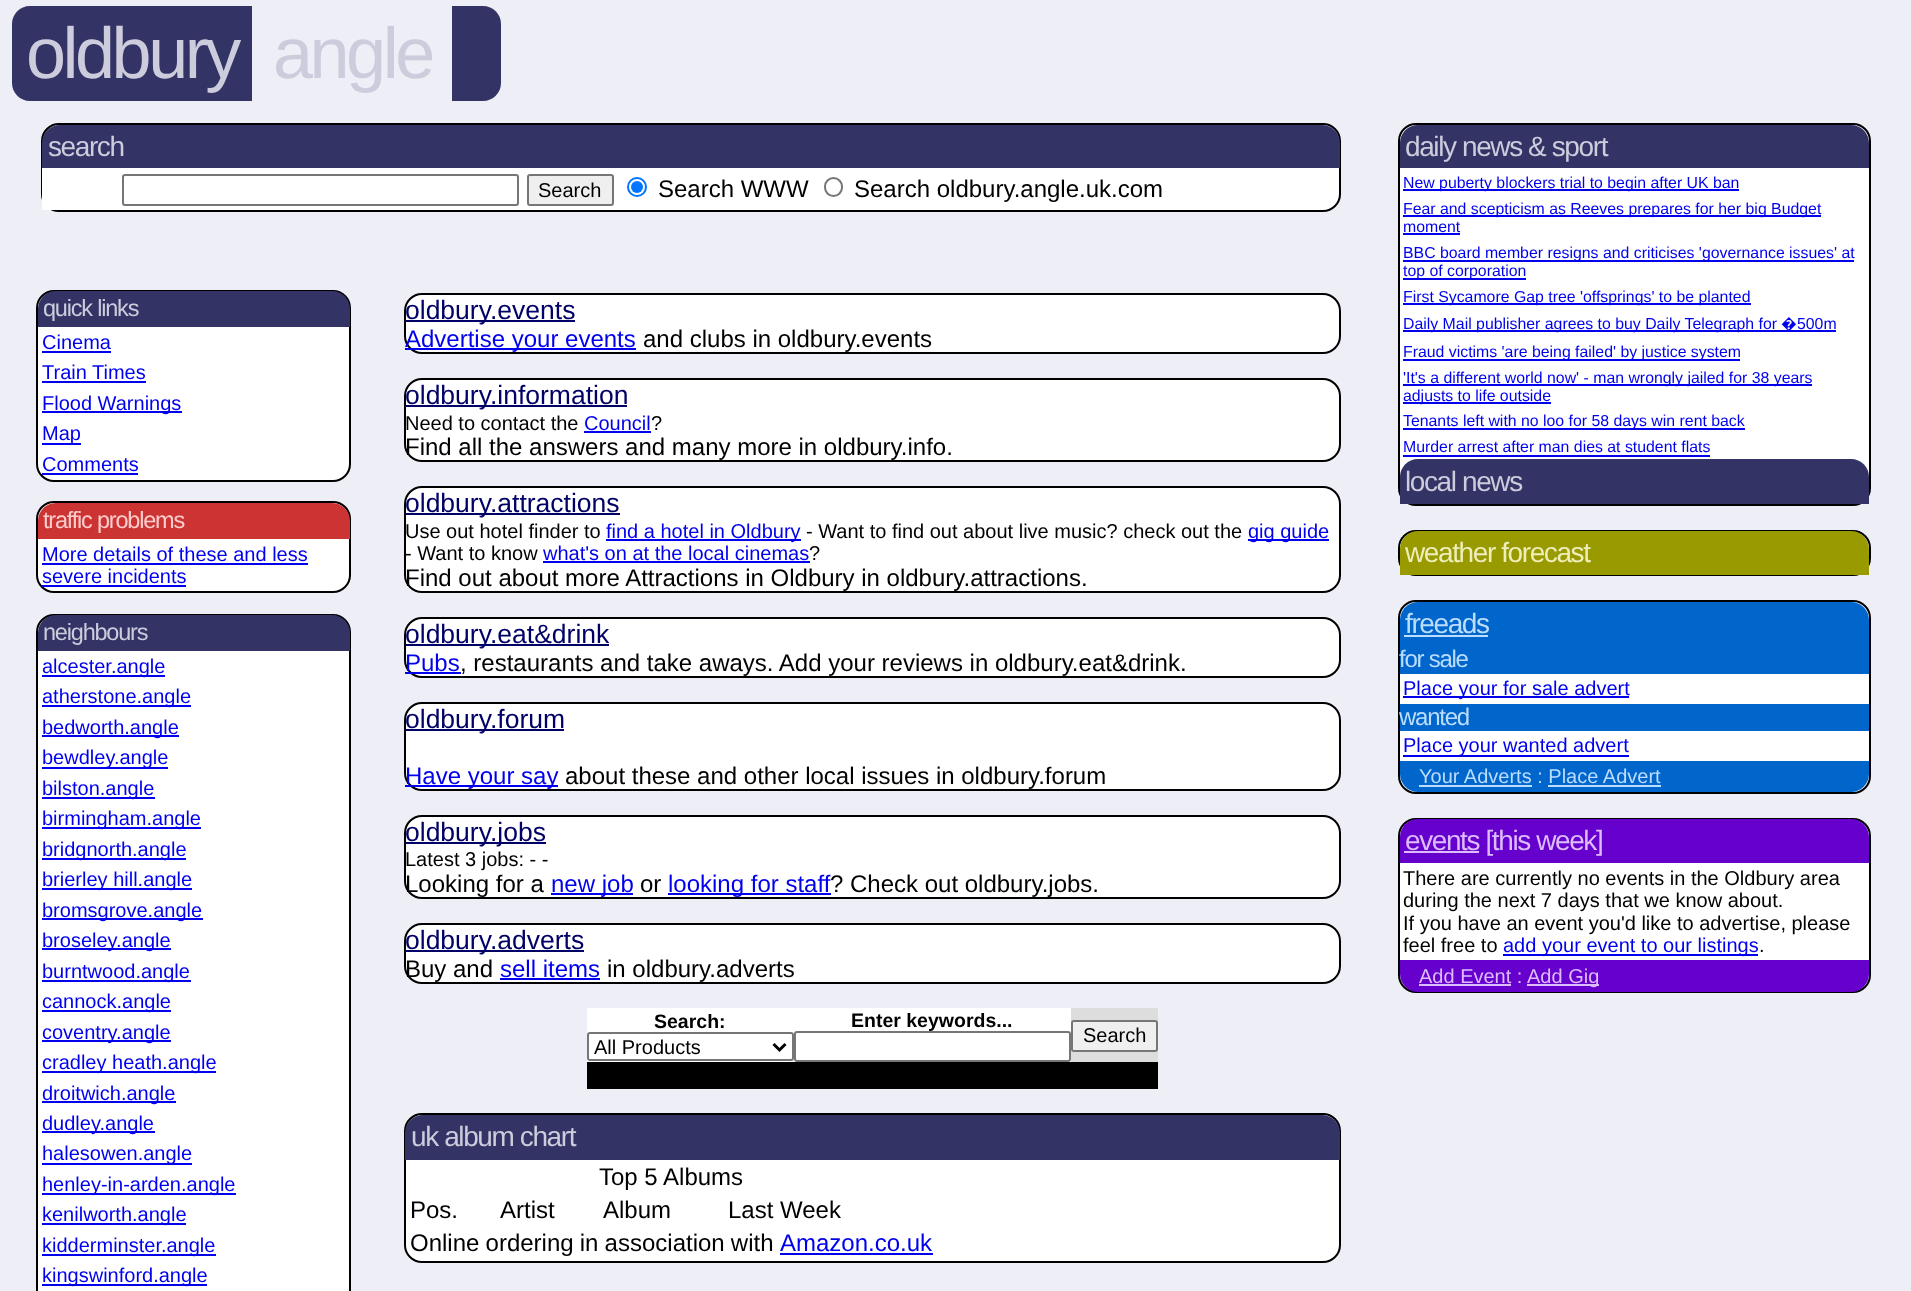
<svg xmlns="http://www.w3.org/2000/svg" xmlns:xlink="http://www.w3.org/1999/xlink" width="1911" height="1291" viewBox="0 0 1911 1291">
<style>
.cls-1{font:72px Liberation Sans;letter-spacing:-3.5px;fill:#ccccdd}
.cls-2{font:28px Liberation Sans;letter-spacing:-1.4px;fill:#ccccdd}
.cls-3{font:20px Liberation Sans;fill:#000000}
.cls-4{font:24px Liberation Sans;fill:#000000}
.cls-5{font:15.85px Liberation Sans;fill:#0000ee}
.cls-6{font:15.85px Noto Sans;fill:#0000ee}
.cls-7{font:28px Liberation Sans;letter-spacing:-1.4px;fill:#eeeebb}
.cls-8{font:28px Liberation Sans;letter-spacing:-1.4px;fill:#bbddff}
.cls-9{font:24px Liberation Sans;letter-spacing:-1.25px;fill:#bbddff}
.cls-10{font:20px Liberation Sans;fill:#0000ee}
.cls-11{font:20px Liberation Sans;fill:#bbddff}
.cls-12{font:28px Liberation Sans;letter-spacing:-1.4px;fill:#ddbbff}
.cls-13{font:20px Liberation Sans;fill:#ddbbff}
.cls-14{font:23.5px Liberation Sans;letter-spacing:-1.2px;fill:#ccccdd}
.cls-15{font:23.5px Liberation Sans;letter-spacing:-1.2px;fill:#ffcccc}
.cls-16{font:26.5px Liberation Sans;fill:#000066}
.cls-17{font:24px Liberation Sans;fill:#0000ee}
.cls-18{font:bold 19.5px Liberation Sans;fill:#000000}
</style>
<rect width="100%" height="100%" fill="#eeeef6"/>
<path fill="#333366" d="M30 6H252V101H30C20 101 12 93 12 83V24C12 14 20 6 30 6Z"/>
<path fill="#333366" d="M452 6H483C493 6 501 14 501 24V83C501 93 493 101 483 101H452Z"/>
<rect fill="#ffffff" stroke="#000000" stroke-width="2" x="42" y="124" width="1298" height="87" rx="17"/>
<path fill="#333366" d="M60 125H1322C1332 125 1340 133 1340 143V168H42V143C42 133 50 125 60 125Z"/>
<rect fill="#ffffff" x="42" y="168" width="17" height="42"/>
<rect fill="none" stroke="#767676" stroke-width="2" x="123" y="175" width="395" height="30" rx="2"/>
<rect fill="#efefef" stroke="#767676" stroke-width="2" x="528" y="175" width="85" height="30" rx="2"/>
<circle fill="none" stroke="#0075ff" stroke-width="2" cx="637" cy="187" r="9"/>
<circle fill="#0075ff" cx="637" cy="187" r="6"/>
<rect fill="none" stroke="#767676" stroke-width="2" x="825" y="178" width="17" height="18" rx="8.5"/>
<rect fill="#ffffff" stroke="#000000" stroke-width="2" x="1399" y="124" width="471" height="381" rx="17"/>
<path fill="#333366" d="M1418 125H1851C1861 125 1869 133 1869 143V168H1400V143C1400 133 1408 125 1418 125Z"/>
<rect fill="#0000ee" x="1403" y="189" width="336" height="2"/>
<rect fill="#0000ee" x="1403" y="215" width="418" height="2"/>
<rect fill="#0000ee" x="1403" y="233" width="57" height="2"/>
<rect fill="#0000ee" x="1403" y="260" width="451" height="2"/>
<rect fill="#0000ee" x="1403" y="278" width="123" height="2"/>
<rect fill="#0000ee" x="1403" y="303" width="348" height="2"/>
<rect fill="#0000ee" x="1403" y="330" width="433" height="2"/>
<rect fill="#0000ee" x="1403" y="359" width="337" height="2"/>
<rect fill="#0000ee" x="1403" y="384" width="409" height="2"/>
<rect fill="#0000ee" x="1403" y="402" width="148" height="2"/>
<rect fill="#0000ee" x="1403" y="428" width="342" height="2"/>
<rect fill="#0000ee" x="1403" y="455" width="307" height="2"/>
<path fill="#333366" d="M1418 459H1851C1861 459 1869 467 1869 477V504H1400V477C1400 467 1408 459 1418 459Z"/>
<rect fill="#ffffff" stroke="#000000" stroke-width="2" x="1399" y="531" width="471" height="44" rx="17"/>
<path fill="#999900" d="M1418 531H1851C1861 531 1869 539 1869 549V575H1400V549C1400 539 1408 531 1418 531Z"/>
<rect fill="#ffffff" stroke="#000000" stroke-width="2" x="1399" y="601" width="471" height="192" rx="17"/>
<path fill="#0066cc" d="M1418 602H1851C1861 602 1869 610 1869 620V647H1400V620C1400 610 1408 602 1418 602Z"/>
<rect fill="#0066cc" x="1404" y="608" width="1" height="1"/>
<rect fill="#bbddff" x="1404" y="635" width="84" height="2"/>
<rect fill="#0066cc" x="1400" y="647" width="469" height="27"/>
<rect fill="#0000ee" x="1403" y="696" width="226" height="2"/>
<rect fill="#0066cc" x="1400" y="704" width="469" height="27"/>
<rect fill="#0000ee" x="1403" y="755" width="226" height="2"/>
<path fill="#0066cc" d="M1400 761H1869V774C1869 784 1861 792 1851 792H1418C1408 792 1400 784 1400 774Z"/>
<rect fill="#bbddff" x="1419" y="785" width="113" height="2"/>
<rect fill="#bbddff" x="1548" y="785" width="113" height="2"/>
<rect fill="#ffffff" stroke="#000000" stroke-width="2" x="1399" y="819" width="471" height="173" rx="17"/>
<path fill="#6600cc" d="M1418 819H1851C1861 819 1869 827 1869 837V863H1400V837C1400 827 1408 819 1418 819Z"/>
<rect fill="#6600cc" x="1404" y="824" width="2" height="2"/>
<rect fill="#ddbbff" x="1404" y="851" width="75" height="2"/>
<rect fill="#0000ee" x="1503" y="954" width="255" height="2"/>
<path fill="#6600cc" d="M1400 960H1869V974C1869 984 1861 992 1851 992H1418C1408 992 1400 984 1400 974Z"/>
<rect fill="#ddbbff" x="1419" y="984" width="92" height="2"/>
<rect fill="#ddbbff" x="1527" y="984" width="72" height="2"/>
<rect fill="#ffffff" stroke="#000000" stroke-width="2" x="37" y="291" width="313" height="190" rx="17"/>
<path fill="#333366" d="M56 291H332C342 291 350 299 350 309V327H38V309C38 299 46 291 56 291Z"/>
<rect fill="#0000ee" x="42" y="351" width="69" height="2"/>
<rect fill="#0000ee" x="42" y="381" width="104" height="2"/>
<rect fill="#0000ee" x="42" y="411" width="140" height="2"/>
<rect fill="#0000ee" x="42" y="443" width="39" height="2"/>
<rect fill="#0000ee" x="42" y="473" width="96" height="2"/>
<rect fill="#ffffff" stroke="#000000" stroke-width="2" x="37" y="502" width="313" height="90" rx="17"/>
<path fill="#cc3333" d="M56 503H332C342 503 350 511 350 521V539H38V521C38 511 46 503 56 503Z"/>
<rect fill="#0000ee" x="42" y="563" width="266" height="2"/>
<rect fill="#0000ee" x="42" y="585" width="144" height="2"/>
<rect fill="#ffffff" stroke="#000000" stroke-width="2" x="37" y="615" width="313" height="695" rx="17"/>
<path fill="#333366" d="M56 615H332C342 615 350 623 350 633V651H38V633C38 623 46 615 56 615Z"/>
<rect fill="#0000ee" x="42" y="675" width="123" height="2"/>
<rect fill="#0000ee" x="42" y="705" width="149" height="2"/>
<rect fill="#0000ee" x="42" y="735" width="137" height="2"/>
<rect fill="#0000ee" x="42" y="767" width="126" height="2"/>
<rect fill="#0000ee" x="42" y="797" width="113" height="2"/>
<rect fill="#0000ee" x="42" y="827" width="159" height="2"/>
<rect fill="#0000ee" x="42" y="858" width="144" height="2"/>
<rect fill="#0000ee" x="42" y="888" width="150" height="2"/>
<rect fill="#0000ee" x="42" y="918" width="161" height="2"/>
<rect fill="#0000ee" x="42" y="948" width="129" height="2"/>
<rect fill="#0000ee" x="42" y="980" width="149" height="2"/>
<rect fill="#0000ee" x="42" y="1010" width="129" height="2"/>
<rect fill="#0000ee" x="42" y="1040" width="129" height="2"/>
<rect fill="#0000ee" x="42" y="1071" width="174" height="2"/>
<rect fill="#0000ee" x="42" y="1101" width="134" height="2"/>
<rect fill="#0000ee" x="42" y="1131" width="113" height="2"/>
<rect fill="#0000ee" x="42" y="1163" width="150" height="2"/>
<rect fill="#0000ee" x="42" y="1193" width="194" height="2"/>
<rect fill="#0000ee" x="42" y="1223" width="144" height="2"/>
<rect fill="#0000ee" x="42" y="1254" width="174" height="2"/>
<rect fill="#0000ee" x="42" y="1284" width="165" height="2"/>
<rect fill="#ffffff" stroke="#000000" stroke-width="2" x="405" y="294" width="935" height="59" rx="17"/>
<rect fill="#000066" x="405" y="320" width="170" height="2"/>
<rect fill="#0000ee" x="405" y="348" width="231" height="2"/>
<rect fill="#ffffff" stroke="#000000" stroke-width="2" x="405" y="379" width="935" height="82" rx="17"/>
<rect fill="#000066" x="405" y="405" width="222" height="2"/>
<rect fill="#0000ee" x="584" y="431" width="67" height="2"/>
<rect fill="#ffffff" stroke="#000000" stroke-width="2" x="405" y="487" width="935" height="105" rx="17"/>
<rect fill="#000066" x="405" y="513" width="215" height="2"/>
<rect fill="#0000ee" x="606" y="539" width="195" height="2"/>
<rect fill="#0000ee" x="1248" y="539" width="81" height="2"/>
<rect fill="#0000ee" x="543" y="561" width="267" height="2"/>
<rect fill="#ffffff" stroke="#000000" stroke-width="2" x="405" y="618" width="935" height="59" rx="17"/>
<rect fill="#000066" x="405" y="644" width="204" height="2"/>
<rect fill="#0000ee" x="405" y="672" width="56" height="2"/>
<rect fill="#ffffff" stroke="#000000" stroke-width="2" x="405" y="703" width="935" height="87" rx="17"/>
<rect fill="#000066" x="405" y="729" width="159" height="2"/>
<rect fill="#0000ee" x="405" y="785" width="153" height="2"/>
<rect fill="#ffffff" stroke="#000000" stroke-width="2" x="405" y="816" width="935" height="82" rx="17"/>
<rect fill="#000066" x="405" y="842" width="141" height="2"/>
<rect fill="#0000ee" x="551" y="893" width="82" height="2"/>
<rect fill="#0000ee" x="668" y="893" width="163" height="2"/>
<rect fill="#ffffff" stroke="#000000" stroke-width="2" x="405" y="924" width="935" height="59" rx="17"/>
<rect fill="#000066" x="405" y="950" width="179" height="2"/>
<rect fill="#0000ee" x="500" y="978" width="100" height="2"/>
<rect fill="#dddddd" x="1071" y="1008" width="87" height="54"/>
<rect fill="#ffffff" x="587" y="1008" width="484" height="54"/>
<rect fill="none" stroke="#767676" stroke-width="2" x="588" y="1033" width="205" height="27" rx="2"/>
<path fill="none" stroke="#000000" stroke-width="3" d="M773.5 1044L779.5 1050L785.5 1044"/>
<rect fill="#efefef" stroke="#767676" stroke-width="2" x="1072" y="1021" width="85" height="30" rx="2"/>
<rect fill="#000000" x="587" y="1062" width="571" height="27"/>
<rect fill="#ffffff" stroke="#000000" stroke-width="2" x="405" y="1114" width="935" height="148" rx="17"/>
<path fill="#333366" d="M423 1115H1322C1332 1115 1340 1123 1340 1133V1160H405V1133C405 1123 413 1115 423 1115Z"/>
<rect fill="#0000ee" x="780" y="1253" width="153" height="2"/>
<text class="cls-1" x="26" y="78">oldbury</text>
<text class="cls-1" x="273" y="78">angle</text>
<text class="cls-2" x="48" y="156">search</text>
<text class="cls-3" x="538" y="197">Search</text>
<text class="cls-4" x="658" y="197">Search WWW</text>
<text class="cls-4" x="854" y="197">Search oldbury.angle.uk.com</text>
<text class="cls-2" x="1405" y="156">daily news &amp; sport</text>
<text class="cls-5"><tspan x="1403" y="188">New puberty blockers trial to begin after UK ban</tspan><tspan x="1403" y="214">Fear and scepticism as Reeves prepares for her big Budget</tspan><tspan x="1403" y="232">moment</tspan><tspan x="1403" y="258">BBC board member resigns and criticises 'governance issues' at</tspan><tspan x="1403" y="276">top of corporation</tspan><tspan x="1403" y="302">First Sycamore Gap tree 'offsprings' to be planted</tspan><tspan x="1403" y="329">Daily Mail publisher agrees to buy Daily Telegraph for</tspan></text>
<text class="cls-6" x="1781" y="329">�</text>
<text class="cls-5" x="1797" y="329">500m</text>
<text class="cls-5"><tspan x="1403" y="357">Fraud victims 'are being failed' by justice system</tspan><tspan x="1403" y="383">'It's a different world now' - man wrongly jailed for 38 years</tspan><tspan x="1403" y="401">adjusts to life outside</tspan><tspan x="1403" y="426">Tenants left with no loo for 58 days win rent back</tspan><tspan x="1403" y="452">Murder arrest after man dies at student flats</tspan></text>
<text class="cls-2" x="1405" y="491">local news</text>
<text class="cls-7" x="1405" y="562">weather forecast</text>
<text class="cls-8" x="1405" y="633">freeads</text>
<text class="cls-9" x="1399" y="667">for sale</text>
<text class="cls-10" x="1403" y="695">Place your for sale advert</text>
<text class="cls-9" x="1399" y="725">wanted</text>
<text class="cls-10" x="1403" y="752">Place your wanted advert</text>
<text class="cls-11" x="1419" y="783">Your Adverts : Place Advert</text>
<text class="cls-12" x="1405" y="850">events [this week]</text>
<text class="cls-3"><tspan x="1403" y="885">There are currently no events in the Oldbury area</tspan><tspan x="1403" y="907">during the next 7 days that we know about.</tspan><tspan x="1403" y="930">If you have an event you'd like to advertise, please</tspan><tspan x="1403" y="952">feel free to</tspan></text>
<text class="cls-10" x="1503" y="952">add your event to our listings</text>
<text class="cls-3" x="1759" y="952">.</text>
<text class="cls-13" x="1419" y="983">Add Event :</text>
<text class="cls-13" x="1527" y="983">Add Gig</text>
<text class="cls-14" x="43" y="316">quick links</text>
<text class="cls-10"><tspan x="42" y="349">Cinema</tspan><tspan x="42" y="379">Train Times</tspan><tspan x="42" y="410">Flood Warnings</tspan><tspan x="42" y="440">Map</tspan><tspan x="42" y="471">Comments</tspan></text>
<text class="cls-15" x="43" y="528">traffic problems</text>
<text class="cls-10"><tspan x="42" y="561">More details of these and less</tspan><tspan x="42" y="583">severe incidents</tspan></text>
<text class="cls-14" x="43" y="640">neighbours</text>
<text class="cls-10"><tspan x="42" y="673">alcester.angle</tspan><tspan x="42" y="703">atherstone.angle</tspan><tspan x="42" y="734">bedworth.angle</tspan><tspan x="42" y="764">bewdley.angle</tspan><tspan x="42" y="795">bilston.angle</tspan><tspan x="42" y="825">birmingham.angle</tspan><tspan x="42" y="856">bridgnorth.angle</tspan><tspan x="42" y="886">brierley hill.angle</tspan><tspan x="42" y="917">bromsgrove.angle</tspan><tspan x="42" y="947">broseley.angle</tspan><tspan x="42" y="978">burntwood.angle</tspan><tspan x="42" y="1008">cannock.angle</tspan><tspan x="42" y="1039">coventry.angle</tspan><tspan x="42" y="1069">cradley heath.angle</tspan><tspan x="42" y="1100">droitwich.angle</tspan><tspan x="42" y="1130">dudley.angle</tspan><tspan x="42" y="1160">halesowen.angle</tspan><tspan x="42" y="1191">henley-in-arden.angle</tspan><tspan x="42" y="1221">kenilworth.angle</tspan><tspan x="42" y="1252">kidderminster.angle</tspan><tspan x="42" y="1282">kingswinford.angle</tspan></text>
<text class="cls-16" x="405" y="319">oldbury.events</text>
<text class="cls-17" x="405" y="347">Advertise your events</text>
<text class="cls-4" x="643" y="347">and clubs in oldbury.events</text>
<text class="cls-16" x="405" y="404">oldbury.information</text>
<text class="cls-3" x="405" y="430">Need to contact the</text>
<text class="cls-10" x="584" y="430">Council</text>
<text class="cls-3" x="651" y="430">?</text>
<text class="cls-4" x="405" y="455">Find all the answers and many more in oldbury.info.</text>
<text class="cls-16" x="405" y="512">oldbury.attractions</text>
<text class="cls-3" x="405" y="538">Use out hotel finder to</text>
<text class="cls-10" x="606" y="538">find a hotel in Oldbury</text>
<text class="cls-3" x="806" y="538">- Want to find out about live music? check out the</text>
<text class="cls-10" x="1248" y="538">gig guide</text>
<text class="cls-3" x="405" y="560">- Want to know</text>
<text class="cls-10" x="543" y="560">what's on at the local cinemas</text>
<text class="cls-3" x="809" y="560">?</text>
<text class="cls-4" x="405" y="586">Find out about more Attractions in Oldbury in oldbury.attractions.</text>
<text class="cls-16" x="405" y="643">oldbury.eat&amp;drink</text>
<text class="cls-17" x="405" y="671">Pubs</text>
<text class="cls-4" x="460" y="671">, restaurants and take aways. Add your reviews in oldbury.eat&amp;drink.</text>
<text class="cls-16" x="405" y="728">oldbury.forum</text>
<text class="cls-17" x="405" y="784">Have your say</text>
<text class="cls-4" x="565" y="784">about these and other local issues in oldbury.forum</text>
<text class="cls-16" x="405" y="841">oldbury.jobs</text>
<text class="cls-3" x="405" y="866">Latest 3 jobs: - -</text>
<text class="cls-4" x="405" y="892">Looking for a</text>
<text class="cls-17" x="551" y="892">new job</text>
<text class="cls-4" x="640" y="892">or</text>
<text class="cls-17" x="668" y="892">looking for staff</text>
<text class="cls-4" x="830" y="892">? Check out oldbury.jobs.</text>
<text class="cls-16" x="405" y="949">oldbury.adverts</text>
<text class="cls-4" x="405" y="977">Buy and</text>
<text class="cls-17" x="500" y="977">sell items</text>
<text class="cls-4" x="607" y="977">in oldbury.adverts</text>
<text class="cls-18" x="654" y="1028">Search:</text>
<text class="cls-3" x="594" y="1054">All Products</text>
<text class="cls-18" x="851" y="1027">Enter keywords...</text>
<rect fill="#ffffff" stroke="#767676" stroke-width="2" x="795" y="1032" width="275" height="29" rx="2"/>
<text class="cls-3" x="1083" y="1042">Search</text>
<text class="cls-2" x="411" y="1146">uk album chart</text>
<text class="cls-4" x="599" y="1185">Top 5 Albums</text>
<text class="cls-4" x="410" y="1218">Pos.</text>
<text class="cls-4" x="500" y="1218">Artist</text>
<text class="cls-4" x="603" y="1218">Album</text>
<text class="cls-4" x="728" y="1218">Last Week</text>
<text class="cls-4" x="410" y="1251" word-spacing="-0.5">Online ordering in association with</text>
<text class="cls-17" x="780" y="1251">Amazon.co.uk</text>
</svg>
